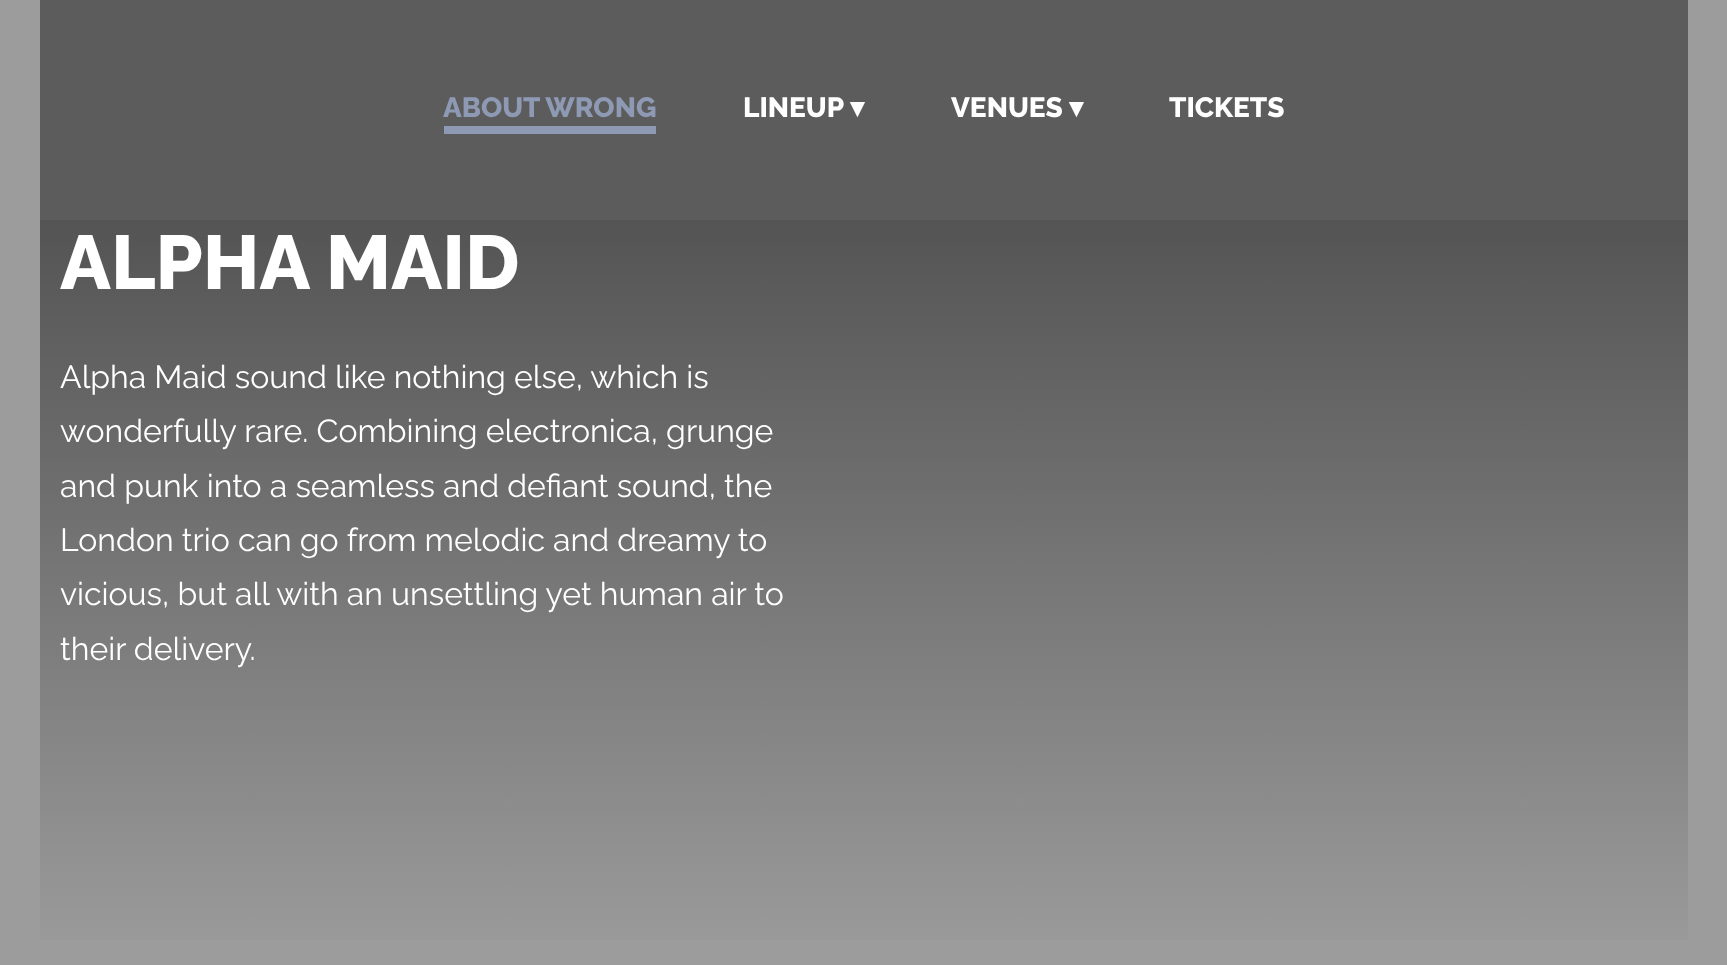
<svg xmlns="http://www.w3.org/2000/svg" xmlns:xlink="http://www.w3.org/1999/xlink" width="1727" height="965" viewBox="0 0 1727 965">
<style>
.cls-1{font:800 28px Raleway;fill:#8e99b4}
.cls-2{font:800 28px Raleway;fill:#ffffff}
.cls-3{font:bold 28px DejaVu Sans;fill:#ffffff}
.cls-4{font:800 76px Raleway;fill:#ffffff}
.cls-5{font:32px Raleway;fill:#ffffff}
</style>
<defs>
<linearGradient id="g1" gradientUnits="userSpaceOnUse" x1="864" y1="220" x2="864" y2="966"><stop offset="0" stop-color="#545454"/><stop offset="1" stop-color="#9c9c9c"/></linearGradient>
</defs>
<rect width="100%" height="100%" fill="#9c9c9c"/>
<rect fill="#5c5c5c" x="40" y="0" width="1648" height="220"/>
<rect fill="#8e99b4" x="444" y="126" width="212" height="8"/>
<rect fill="url(#g1)" x="40" y="220" width="1648" height="720"/>
<text class="cls-1" x="443" y="117">ABOUT WRONG</text>
<text class="cls-2" x="743" y="117">LINEUP</text>
<text class="cls-3" x="850" y="117">▾</text>
<text class="cls-2" x="951" y="117">VENUES</text>
<text class="cls-3" x="1069" y="117">▾</text>
<text class="cls-2" x="1169" y="117">TICKETS</text>
<text class="cls-4" x="60" y="289">ALPHA MAID</text>
<text class="cls-5"><tspan x="60" y="388">Alpha Maid sound like nothing else, which is</tspan><tspan x="60" y="442">wonderfully rare. Combining electronica, grunge</tspan><tspan x="60" y="497">and punk into a seamless and defiant sound, the</tspan><tspan x="60" y="551">London trio can go from melodic and dreamy to</tspan><tspan x="60" y="605">vicious, but all with an unsettling yet human air to</tspan><tspan x="60" y="660">their delivery.</tspan></text>
</svg>
